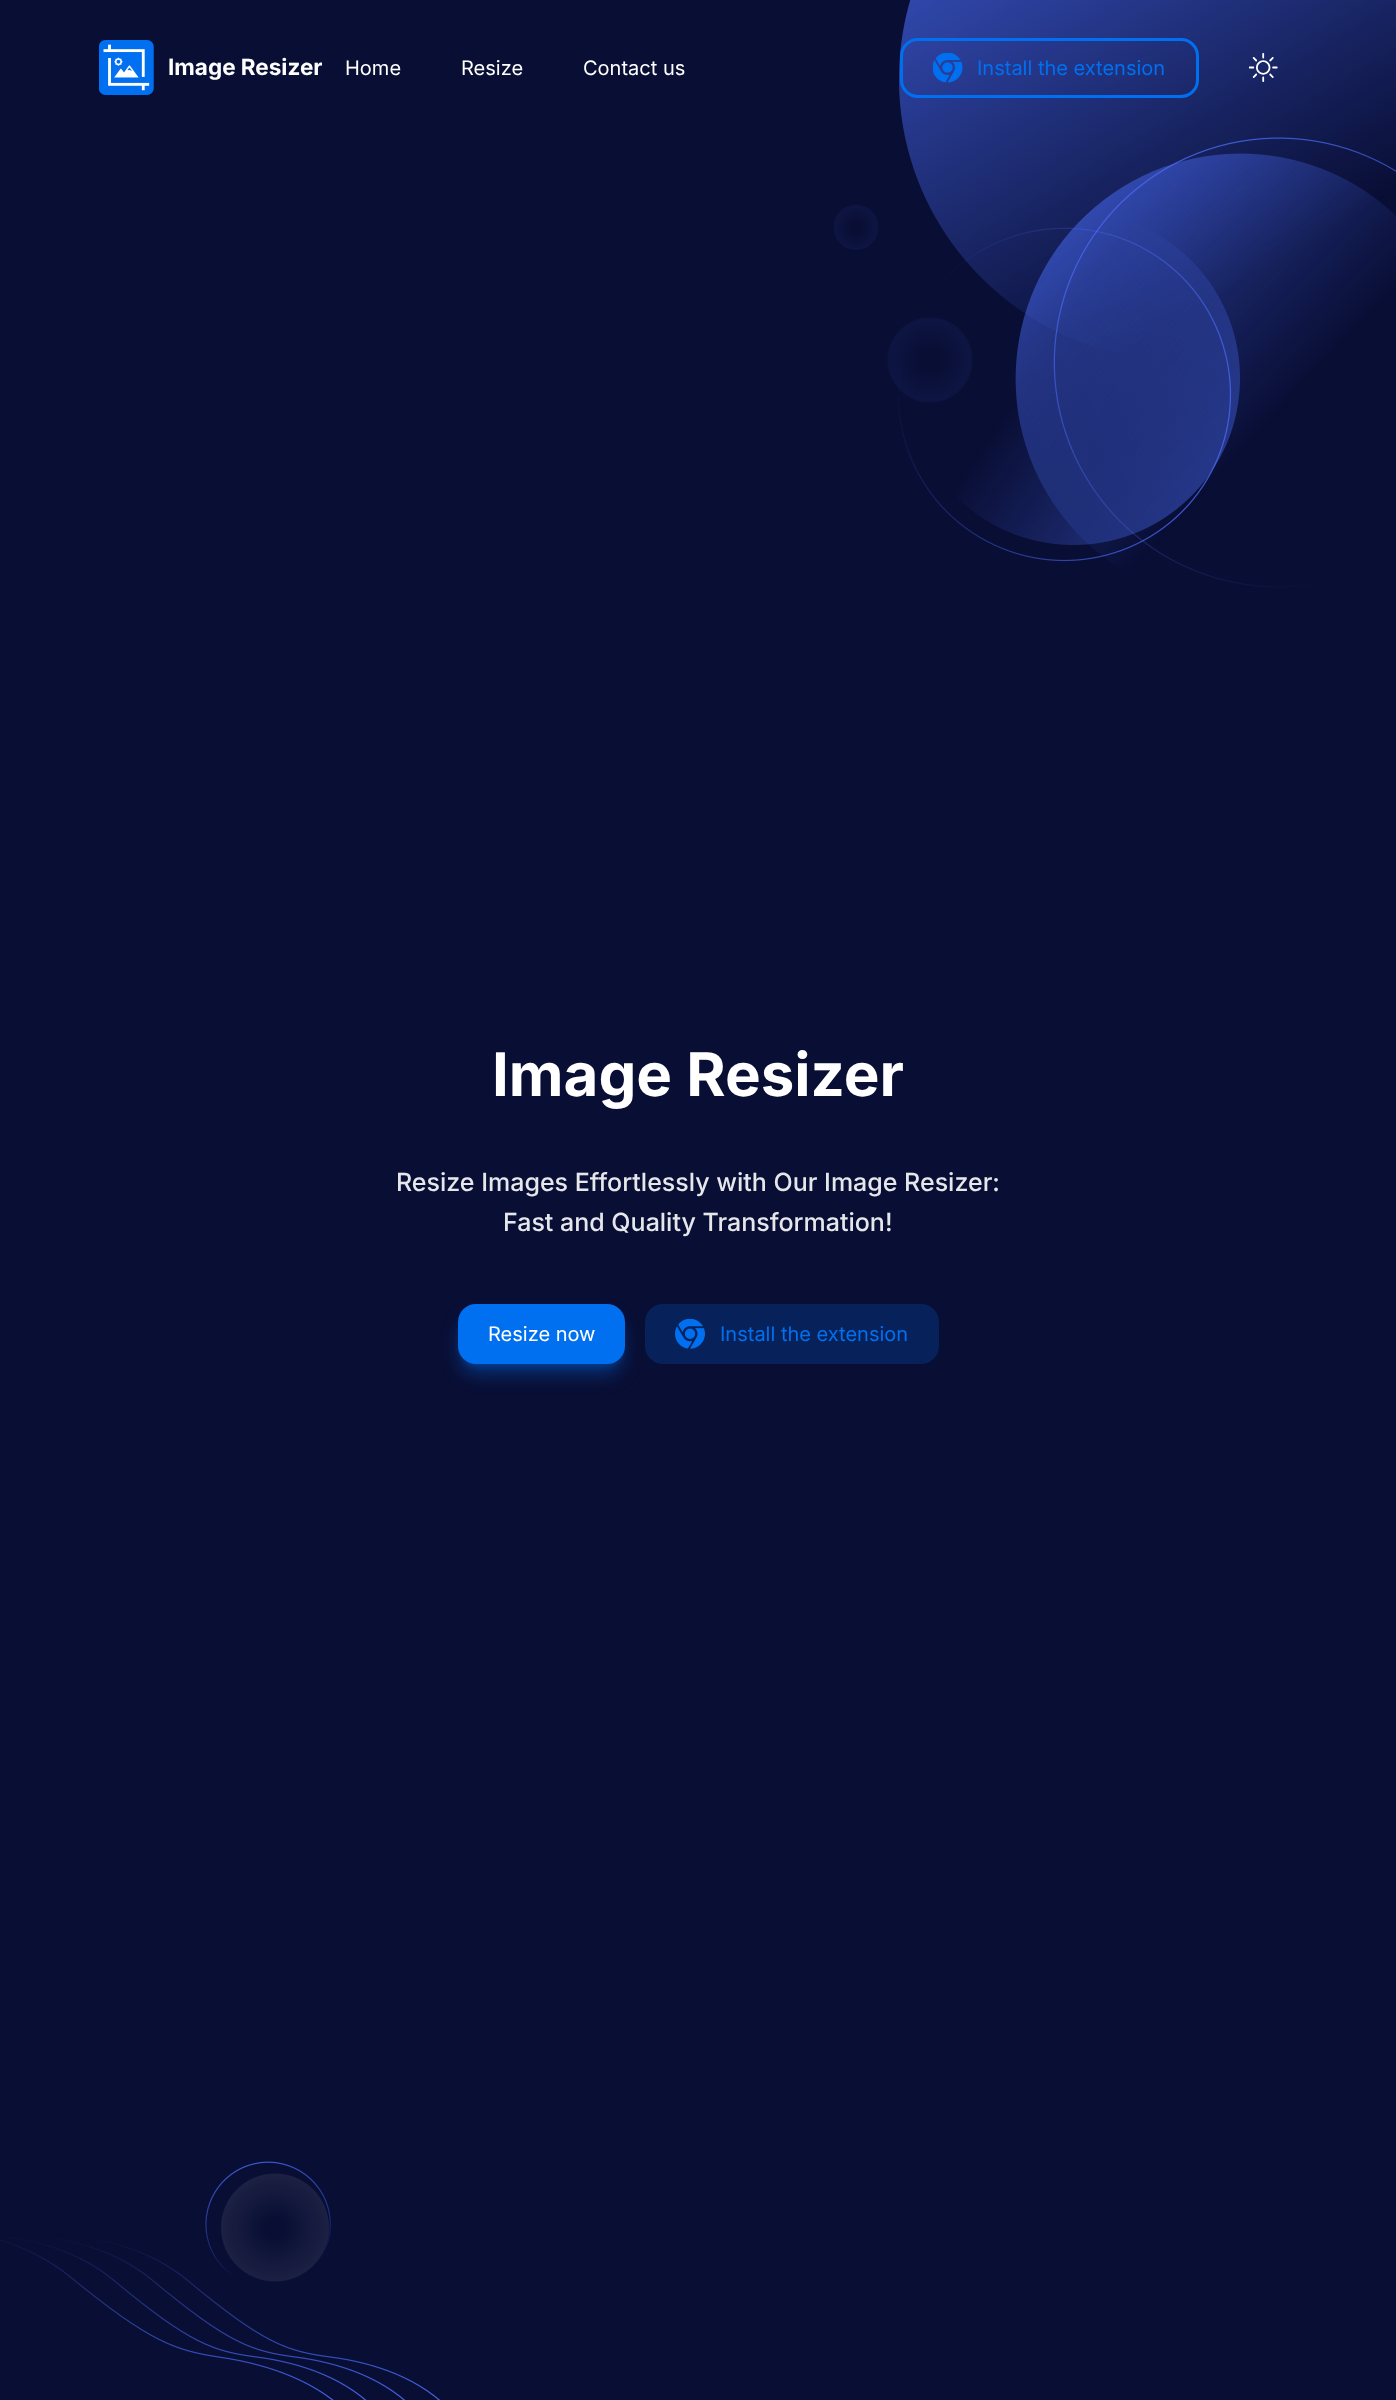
<svg xmlns="http://www.w3.org/2000/svg" xmlns:xlink="http://www.w3.org/1999/xlink" width="1396" height="2400" viewBox="0 0 1396 2400">
<style>
.cls-1{font:bold 22.5px Inter;fill:#ffffff}
.cls-2{font:20px Inter;fill:#ffffff}
.cls-3{font:20px Inter;fill:#0070f0}
.cls-4{font:bold 60px Inter;fill:#ffffff}
.cls-5{font:500 25px Inter;fill:#e6e7eb}
</style>
<rect width="100%" height="100%" fill="#090e34"/>
<image xlink:href="image0.png" x="99" y="40" width="55" height="55"/>
<image xlink:href="image3.png" x="834" y="0" width="562" height="588"/>
<rect fill="none" stroke="#0070f0" stroke-width="3" x="901.5" y="39.5" width="296" height="57" rx="16.5"/>
<image xlink:href="image1.png" x="933" y="53" width="30" height="30"/>
<image xlink:href="image2.png" x="1248" y="53" width="30" height="29"/>
<rect fill="#0070f0" fill-opacity="0.4" filter="blur(4px)" x="463" y="1314" width="157" height="50" rx="13"/>
<rect fill="#0070f0" fill-opacity="0.4" filter="blur(9.5px)" x="461" y="1320" width="160" height="53" rx="14"/>
<rect fill="#0070f0" x="458" y="1304" width="167" height="60" rx="18"/>
<rect fill="#07225a" x="645" y="1304" width="294" height="60" rx="18"/>
<image xlink:href="image4.png" x="675" y="1319" width="30" height="30"/>
<image xlink:href="image5.png" x="0" y="2161" width="440" height="239"/>
<text class="cls-1" x="168" y="75">Image Resizer</text>
<text class="cls-2" x="345" y="75">Home</text>
<text class="cls-2" x="461" y="75">Resize</text>
<text class="cls-2" x="583" y="75">Contact us</text>
<text class="cls-3" x="977" y="75">Install the extension</text>
<text class="cls-4" x="492" y="1096">Image Resizer</text>
<text class="cls-5" x="396" y="1191">Resize Images Effortlessly with Our Image Resizer:</text>
<text class="cls-5" x="503" y="1231">Fast and Quality Transformation!</text>
<text class="cls-2" x="488" y="1341">Resize now</text>
<text class="cls-3" x="720" y="1341">Install the extension</text>
</svg>
